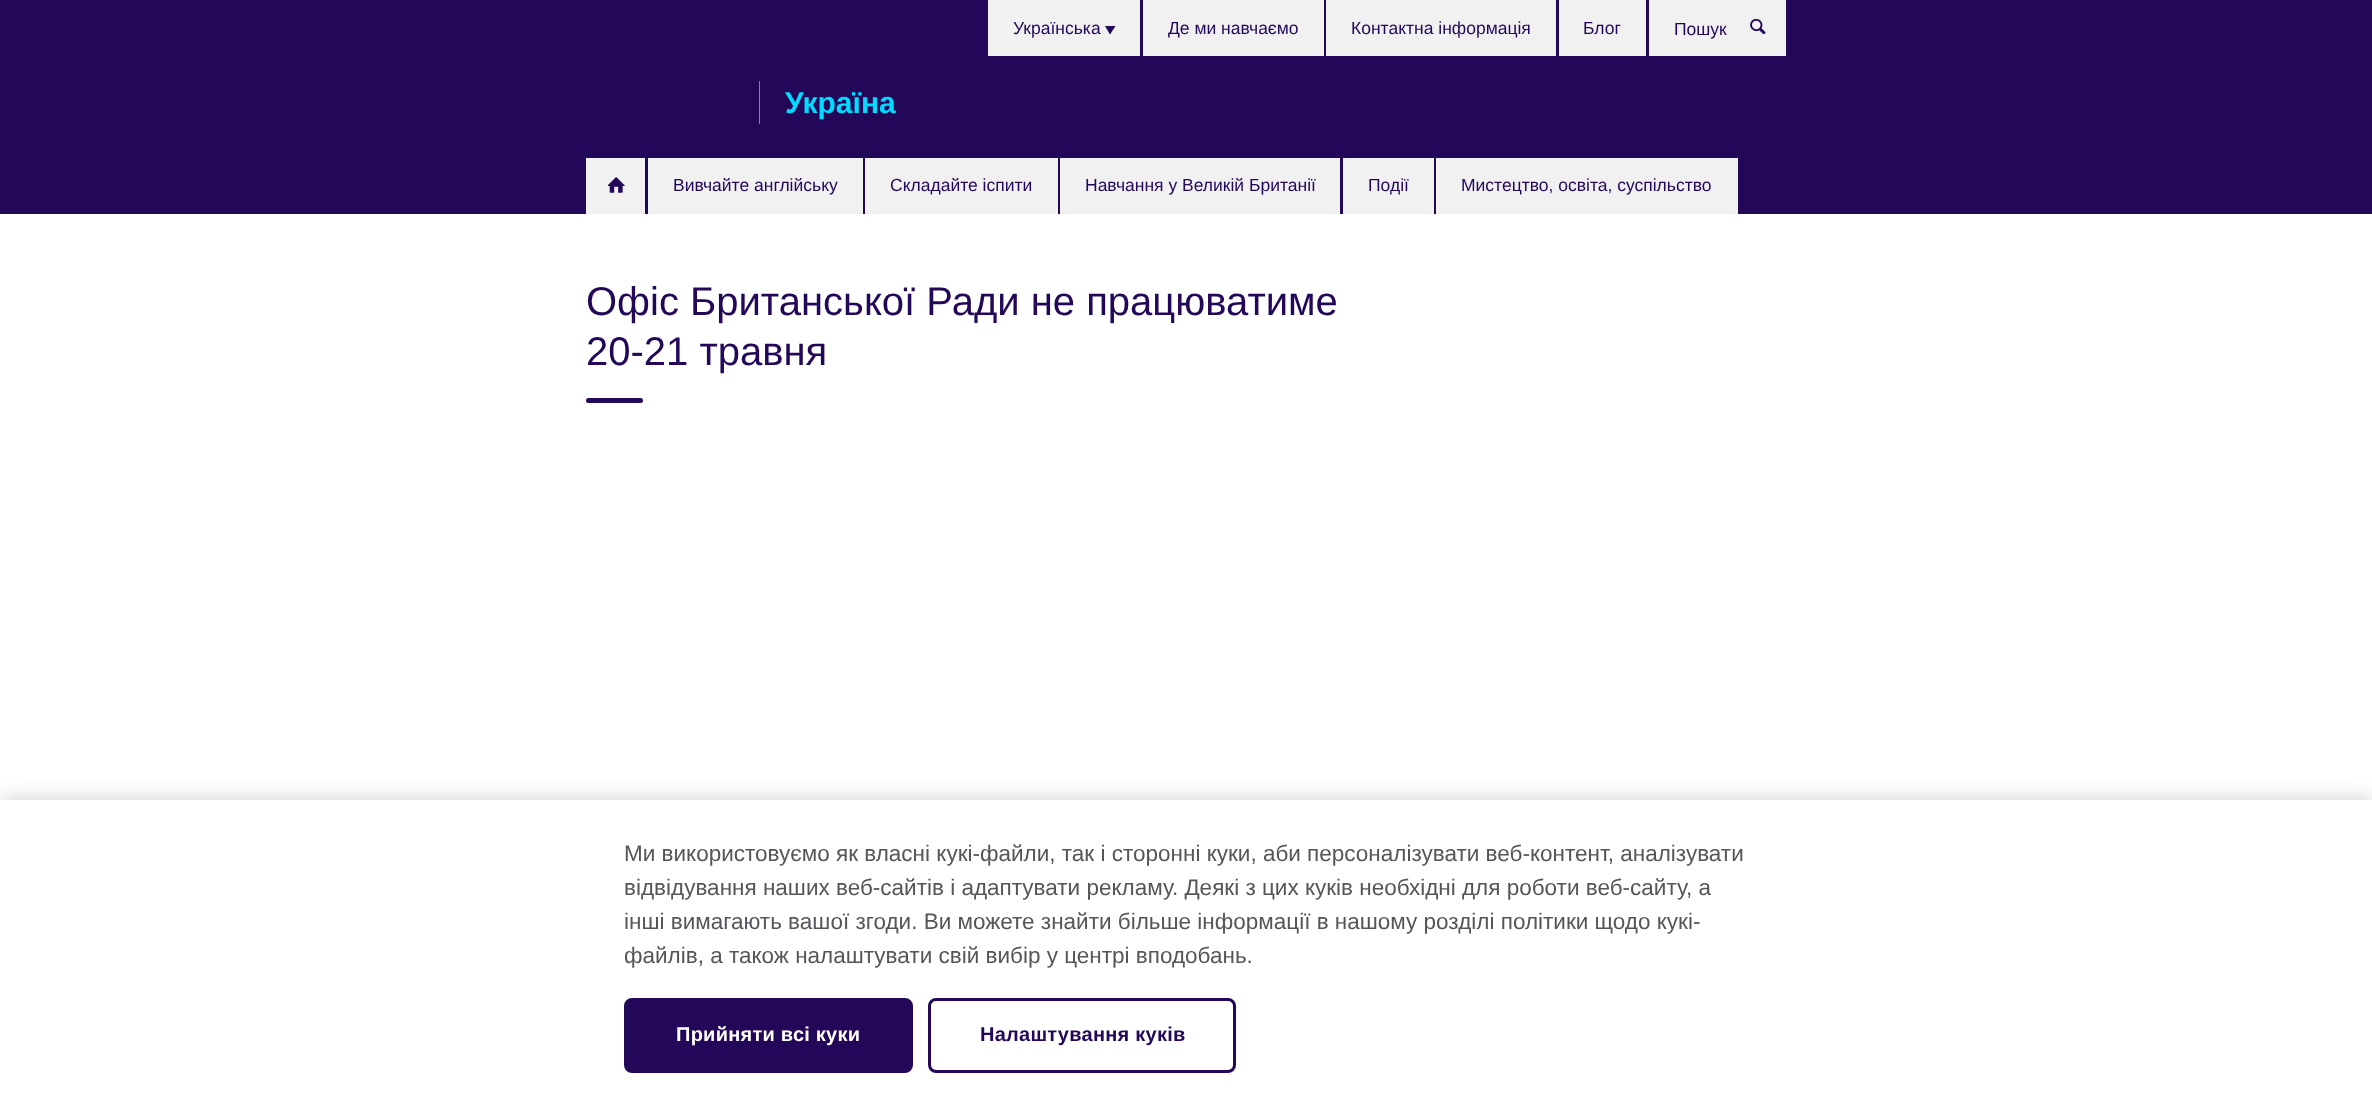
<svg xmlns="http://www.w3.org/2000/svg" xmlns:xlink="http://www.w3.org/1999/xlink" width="2372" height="1114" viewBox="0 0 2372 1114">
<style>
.cls-1{font:17.5px Liberation Sans;fill:#23085a}
.cls-2{font:bold 30px Liberation Sans;fill:#00dcff}
.cls-3{font:40px Liberation Sans;fill:#23085a}
.cls-4{font:22.5px Liberation Sans;fill:#54565a}
.cls-5{font:bold 20px Liberation Sans;letter-spacing:0.25px;fill:#ffffff}
.cls-6{font:bold 20px Liberation Sans;letter-spacing:0.25px;fill:#23085a}
</style>
<rect width="100%" height="100%" fill="#ffffff"/>
<rect fill="#23085a" x="0" y="0" width="2372" height="214"/>
<rect fill="#f1f1f1" x="988" y="0" width="152" height="56"/>
<path fill="#23085a" fill-rule="evenodd" d="M1115.5 26H1105L1110 34.5L1115.5 26"/>
<rect fill="#f1f1f1" x="1143" y="0" width="181" height="56"/>
<rect fill="#f1f1f1" x="1326" y="0" width="230" height="56"/>
<rect fill="#f1f1f1" x="1559" y="0" width="87" height="56"/>
<rect fill="#f1f1f1" x="1649" y="0" width="137" height="56"/>
<image xlink:href="image0.png" x="1750" y="19" width="16" height="15"/>
<rect fill="#f1f1f1" x="586" y="158" width="59" height="56"/>
<image xlink:href="image1.png" x="608" y="177" width="17" height="16"/>
<rect fill="#f1f1f1" x="648" y="158" width="215" height="56"/>
<rect fill="#f1f1f1" x="865" y="158" width="193" height="56"/>
<rect fill="#f1f1f1" x="1060" y="158" width="280" height="56"/>
<rect fill="#f1f1f1" x="1343" y="158" width="91" height="56"/>
<rect fill="#f1f1f1" x="1436" y="158" width="302" height="56"/>
<rect fill="#8a7da6" x="759" y="81" width="1" height="43"/>
<rect fill="#23085a" x="586" y="398" width="57" height="5" rx="2.5"/>
<rect fill="#000000" fill-opacity="0.2" filter="blur(11px)" x="0" y="800" width="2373" height="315"/>
<rect fill="#ffffff" x="0" y="800" width="2372" height="314"/>
<rect fill="#23085a" stroke="#23085a" stroke-width="3" x="625.5" y="999.5" width="286" height="72" rx="6.5"/>
<rect fill="none" stroke="#23085a" stroke-width="3" x="929.5" y="999.5" width="305" height="72" rx="6.5"/>
<text class="cls-1" x="1013" y="34">Українська</text>
<text class="cls-1" x="1168" y="34">Де ми навчаємо</text>
<text class="cls-1" x="1351" y="34">Контактна інформація</text>
<text class="cls-1" x="1583" y="34">Блог</text>
<text class="cls-1" x="1674" y="35">Пошук</text>
<text class="cls-1" x="673" y="191">Вивчайте англійську</text>
<text class="cls-1" x="890" y="191">Складайте іспити</text>
<text class="cls-1" x="1085" y="191">Навчання у Великій Британії</text>
<text class="cls-1" x="1368" y="191">Події</text>
<text class="cls-1" x="1461" y="191">Мистецтво, освіта, суспільство</text>
<text class="cls-2" x="785" y="113">Україна</text>
<text class="cls-3"><tspan x="586" y="315">Офіс Британської Ради не працюватиме</tspan><tspan x="586" y="365">20-21 травня</tspan></text>
<text class="cls-4"><tspan x="624" y="861">Ми використовуємо як власні кукі-файли, так і сторонні куки, аби персоналізувати веб-контент, аналізувати</tspan><tspan x="624" y="895">відвідування наших веб-сайтів і адаптувати рекламу. Деякі з цих куків необхідні для роботи веб-сайту, а</tspan><tspan x="624" y="929">інші вимагають вашої згоди. Ви можете знайти більше інформації в нашому розділі політики щодо кукі-</tspan><tspan x="624" y="963">файлів, а також налаштувати свій вибір у центрі вподобань.</tspan></text>
<text class="cls-5" x="676" y="1041">Прийняти всі куки</text>
<text class="cls-6" x="980" y="1041">Налаштування куків</text>
</svg>
